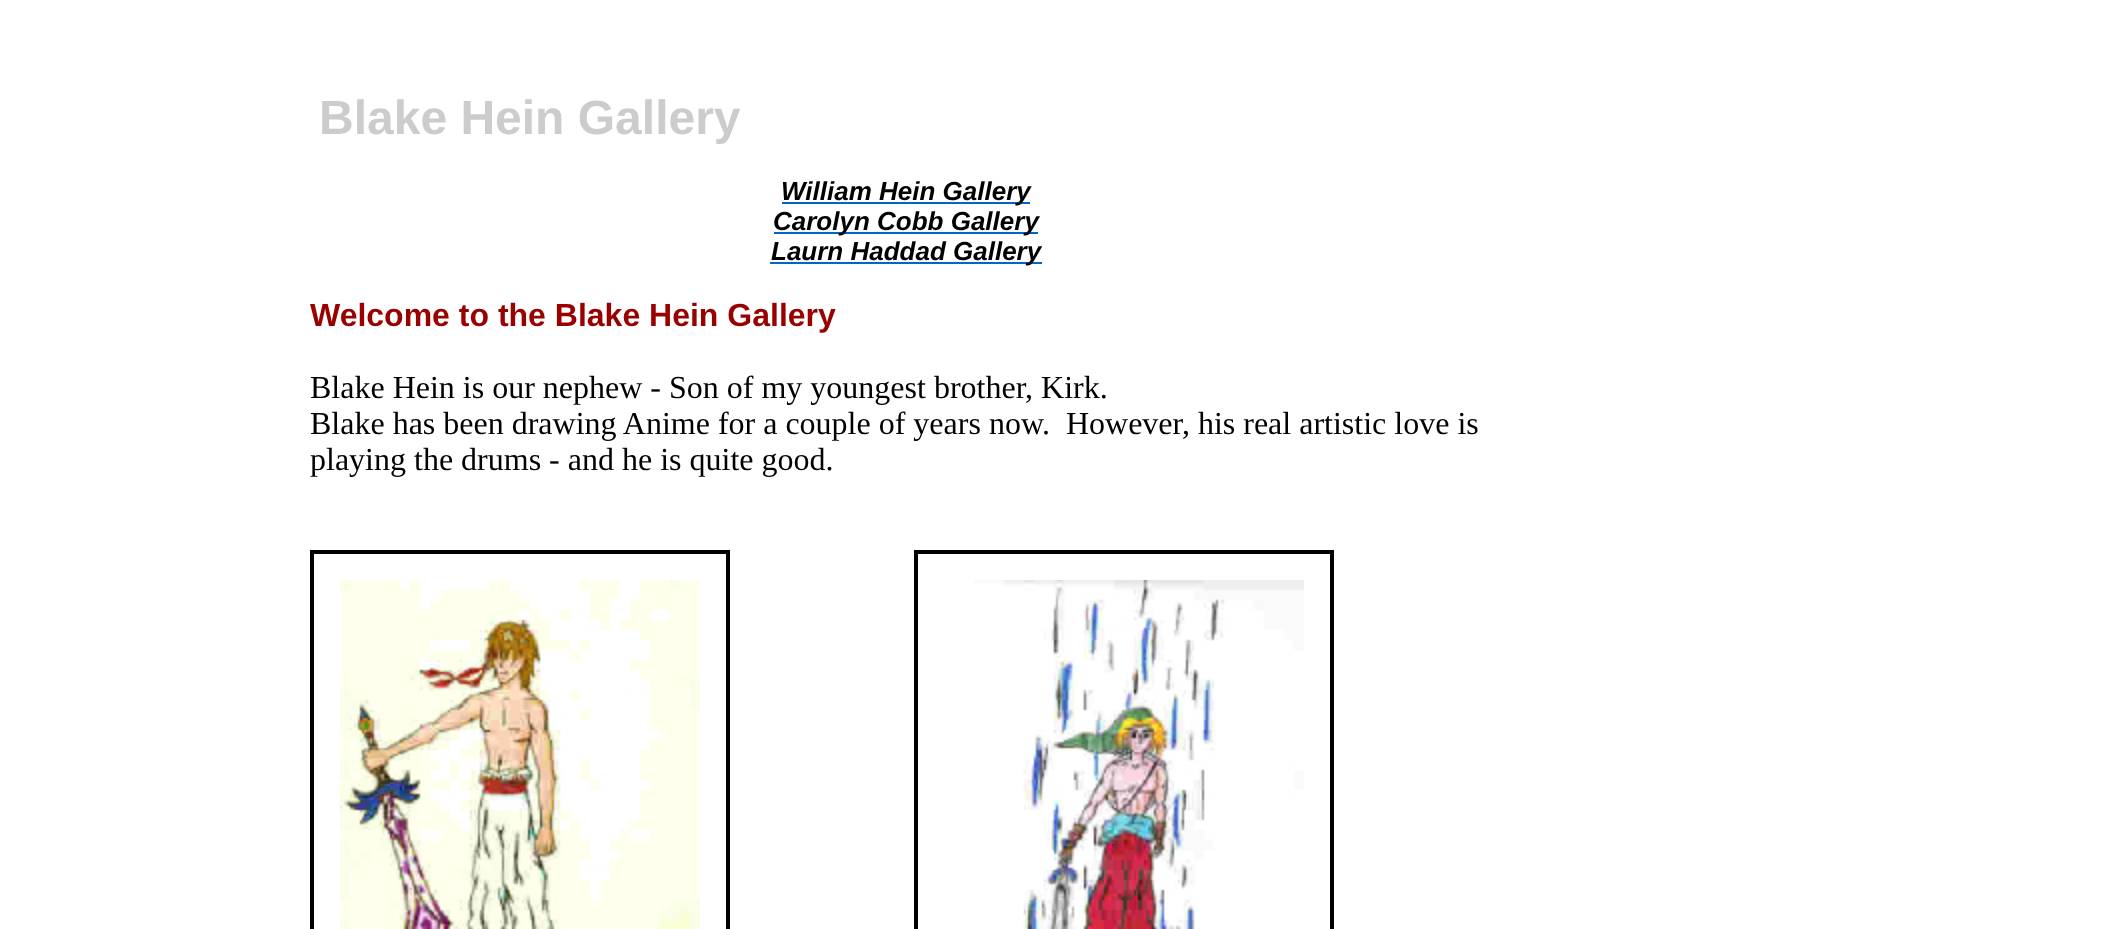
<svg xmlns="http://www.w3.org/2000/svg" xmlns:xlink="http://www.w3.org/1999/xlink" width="2104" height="929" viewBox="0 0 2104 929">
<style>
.cls-1{font:bold 48px Liberation Sans;fill:#cccccc}
.cls-2{font:italic bold 26px Liberation Sans;fill:#000000}
.cls-3{font:bold 32px Liberation Sans;fill:#990000}
.cls-4{font:32px Liberation Serif;fill:#000000}
</style>
<rect width="100%" height="100%" fill="#ffffff"/>
<rect fill="#0066cc" x="782" y="202" width="248" height="2"/>
<rect fill="#0066cc" x="774" y="232" width="264" height="2"/>
<rect fill="#0066cc" x="770" y="262" width="272" height="2"/>
<rect fill="none" stroke="#000000" stroke-width="2" x="311" y="551" width="418" height="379"/>
<rect fill="none" stroke="#000000" stroke-width="2" x="313" y="553" width="414" height="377"/>
<image xlink:href="image0.png" x="340" y="580" width="360" height="349"/>
<rect fill="none" stroke="#000000" stroke-width="2" x="915" y="551" width="418" height="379"/>
<rect fill="none" stroke="#000000" stroke-width="2" x="917" y="553" width="414" height="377"/>
<image xlink:href="image1.png" x="974" y="580" width="330" height="349"/>
<text class="cls-1" x="319" y="134">Blake Hein Gallery</text>
<text class="cls-2" x="781" y="200">William Hein Gallery</text>
<text class="cls-2" x="773" y="230">Carolyn Cobb Gallery</text>
<text class="cls-2" x="771" y="260">Laurn Haddad Gallery</text>
<text class="cls-3" x="310" y="326">Welcome to the Blake Hein Gallery</text>
<text class="cls-4" xml:space="preserve"><tspan x="310" y="398">Blake Hein is our nephew - Son of my youngest brother, Kirk.</tspan><tspan x="310" y="434">Blake has been drawing Anime for a couple of years now.  However, his real artistic love is</tspan><tspan x="310" y="470">playing the drums - and he is quite good.</tspan></text>
</svg>
